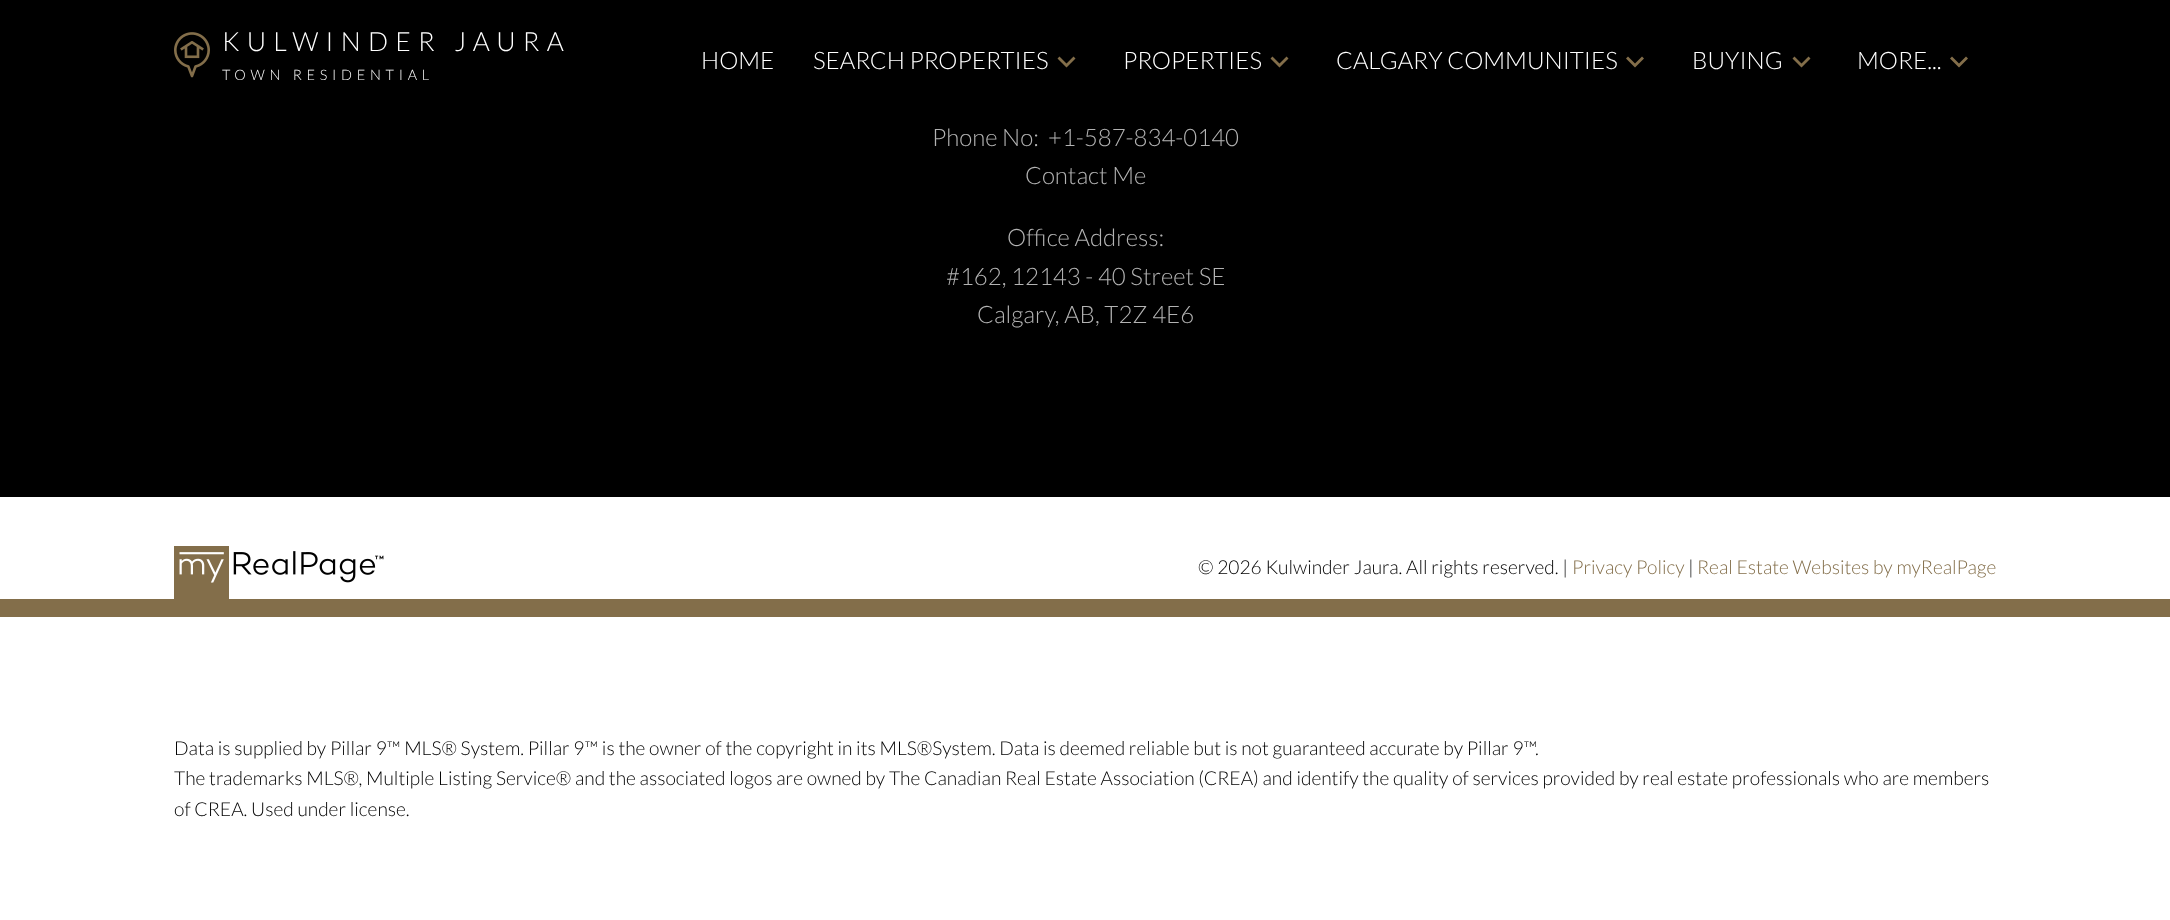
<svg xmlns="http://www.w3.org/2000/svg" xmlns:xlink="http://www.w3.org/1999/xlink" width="2170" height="920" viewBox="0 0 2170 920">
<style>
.cls-1{font:300 26.4px Lato;letter-spacing:7.25px;fill:#ffffff}
.cls-2{font:300 14.4px Lato;letter-spacing:4.75px;fill:#ffffff}
.cls-3{font:300 24px Lato;fill:#ffffff}
.cls-4{font:300 24px Lato;fill:#b3b3b3}
.cls-5{font:300 19.2px Lato;fill:#000000}
.cls-6{font:300 19.2px Lato;fill:#836e4a}
</style>
<rect width="100%" height="100%" fill="#ffffff"/>
<rect fill="#000000" x="0" y="120" width="2170" height="377"/>
<rect fill="#000000" fill-opacity="0.12" filter="blur(6px)" x="0" y="2" width="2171" height="120"/>
<rect fill="#000000" fill-opacity="0.14" filter="blur(3px)" x="0" y="5" width="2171" height="120"/>
<rect fill="#000000" x="0" y="0" width="2170" height="120"/>
<image xlink:href="image0.png" x="174" y="32" width="36" height="46"/>
<path fill="#836e4a" d="M1073.5 56.5L1066.5 63.5L1059.5 56.5L1057.5 58.5L1066.5 67.5L1075.5 58.5Z"/>
<path fill="#836e4a" d="M1286.5 56.5L1279.5 63.5L1272.5 56.5L1270.5 58.5L1279.5 67.5L1288.5 58.5Z"/>
<path fill="#836e4a" d="M1642 56.5L1635 63.5L1628 56.5L1626 58.5L1635 67.5L1644 58.5Z"/>
<path fill="#836e4a" d="M1808.5 56.5L1801.5 63.5L1794.5 56.5L1792.5 58.5L1801.5 67.5L1810.5 58.5Z"/>
<path fill="#836e4a" d="M1966 56.5L1959 63.5L1952 56.5L1950 58.5L1959 67.5L1968 58.5Z"/>
<image xlink:href="image1.png" x="174" y="546" width="210" height="53"/>
<rect fill="#836e4a" x="0" y="599" width="2170" height="18"/>
<text class="cls-1" x="222" y="51">KULWINDER JAURA</text>
<text class="cls-2" x="222" y="80">TOWN RESIDENTIAL</text>
<text class="cls-3" x="701" y="69">HOME</text>
<text class="cls-3" x="813" y="69">SEARCH PROPERTIES</text>
<text class="cls-3" x="1123" y="69">PROPERTIES</text>
<text class="cls-3" x="1336" y="69">CALGARY COMMUNITIES</text>
<text class="cls-3" x="1692" y="69">BUYING</text>
<text class="cls-3" x="1857" y="69">MORE...</text>
<text class="cls-4" x="932" y="146">Phone No:</text>
<text class="cls-4" x="1048" y="146">+1-587-834-0140</text>
<text class="cls-4" x="1025" y="184">Contact Me</text>
<text class="cls-4" x="1007" y="246">Office Address:</text>
<text class="cls-4" x="946" y="285">#162, 12143 - 40 Street SE</text>
<text class="cls-4" x="977" y="323">Calgary, AB, T2Z 4E6</text>
<text class="cls-5" x="1198" y="574">© 2026 Kulwinder Jaura. All rights reserved. |</text>
<text class="cls-6" x="1572" y="574">Privacy Policy</text>
<text class="cls-5" x="1688" y="574">|</text>
<text class="cls-6" x="1697" y="574">Real Estate Websites by myRealPage</text>
<text class="cls-5"><tspan x="174" y="755">Data is supplied by Pillar 9™ MLS® System. Pillar 9™ is the owner of the copyright in its MLS®System. Data is deemed reliable but is not guaranteed accurate by Pillar 9™.</tspan><tspan x="174" y="785">The trademarks MLS®, Multiple Listing Service® and the associated logos are owned by The Canadian Real Estate Association (CREA) and identify the quality of services provided by real estate professionals who are members</tspan><tspan x="174" y="816">of CREA. Used under license.</tspan></text>
</svg>
